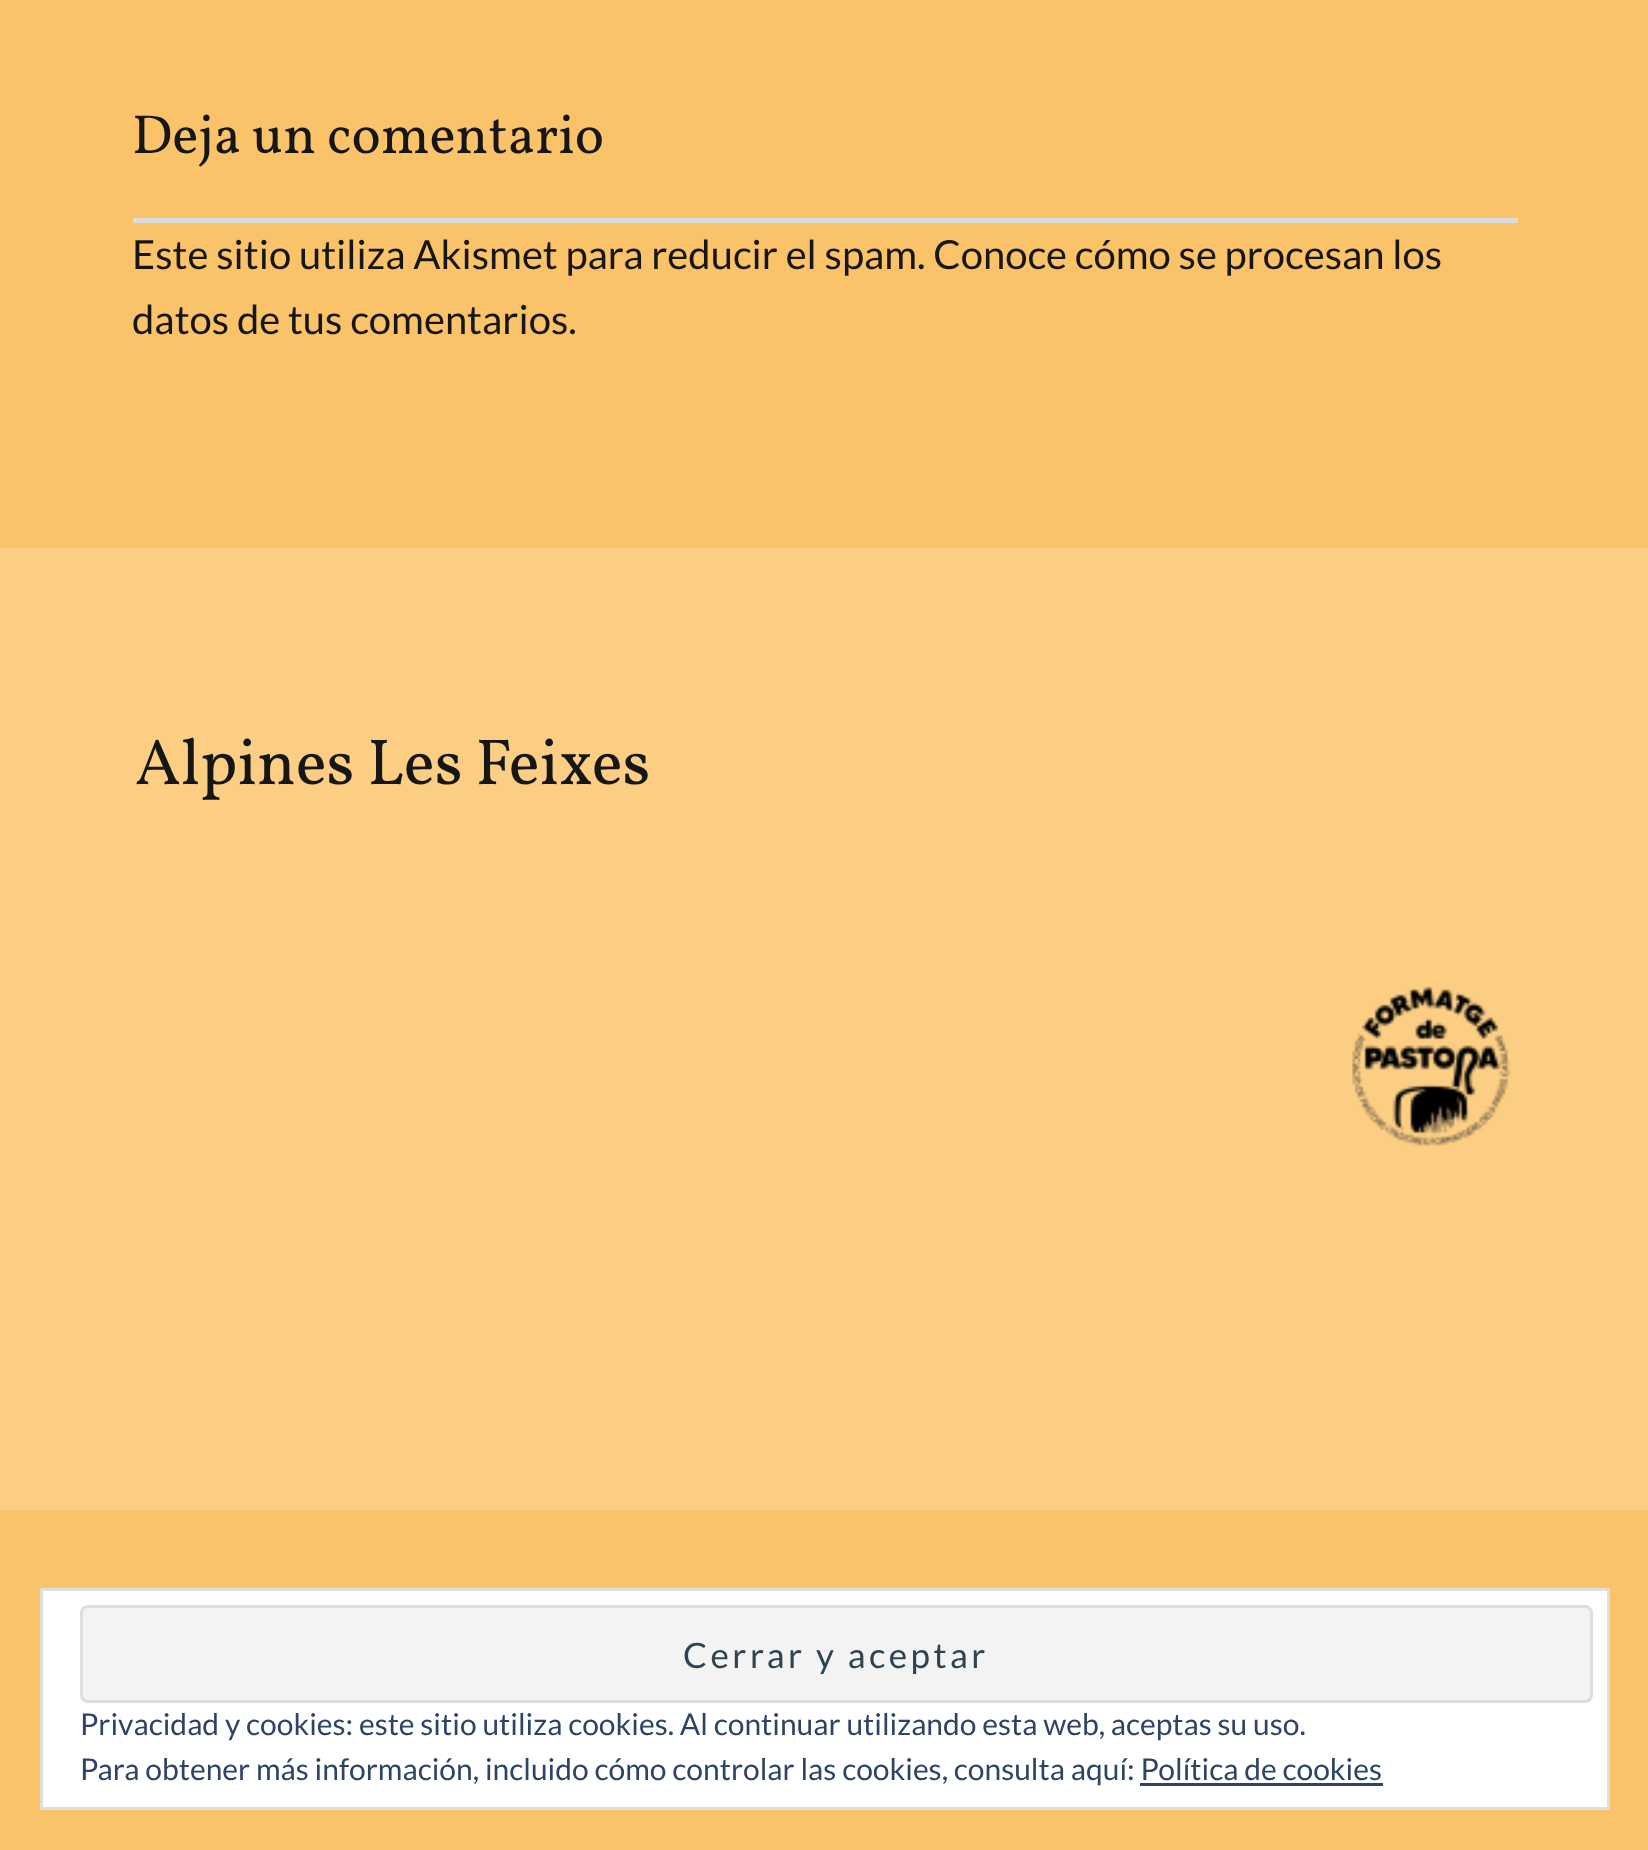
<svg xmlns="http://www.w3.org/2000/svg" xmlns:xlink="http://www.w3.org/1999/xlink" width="1648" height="1850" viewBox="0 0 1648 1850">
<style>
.cls-1{font:55px Vollkorn;fill:#161616}
.cls-2{font:40px Lato;fill:#161616}
.cls-3{font:65px Vollkorn;fill:#161616}
.cls-4{font:35px Lato;letter-spacing:3.5px;fill:#2e4453}
.cls-5{font:30px Lato;fill:#2e4467}
</style>
<rect width="100%" height="100%" fill="#fbc369"/>
<rect fill="#dcdcde" x="133" y="218" width="1385" height="5"/>
<rect fill="#fcce83" x="0" y="548" width="1648" height="962"/>
<image xlink:href="image0.png" x="1352" y="986" width="159" height="160"/>
<rect fill="#ffffff" stroke="#dedede" stroke-width="3" x="41.5" y="1589.5" width="1567" height="219"/>
<rect fill="#f3f3f3" stroke="#dedede" stroke-width="3" x="81.5" y="1606.5" width="1510" height="95" rx="6.5"/>
<rect fill="#2e4467" x="1140" y="1783" width="243" height="3"/>
<text class="cls-1" x="132" y="153">Deja un comentario</text>
<text class="cls-2"><tspan x="132" y="269">Este sitio utiliza Akismet para reducir el spam. Conoce cómo se procesan los</tspan><tspan x="132" y="334">datos de tus comentarios.</tspan></text>
<text class="cls-3" x="135" y="784">Alpines Les Feixes</text>
<text class="cls-4" x="683" y="1668">Cerrar y aceptar</text>
<text class="cls-5"><tspan x="80" y="1735">Privacidad y cookies: este sitio utiliza cookies. Al continuar utilizando esta web, aceptas su uso.</tspan><tspan x="80" y="1780">Para obtener más información, incluido cómo controlar las cookies, consulta aquí: Política de cookies</tspan></text>
</svg>
